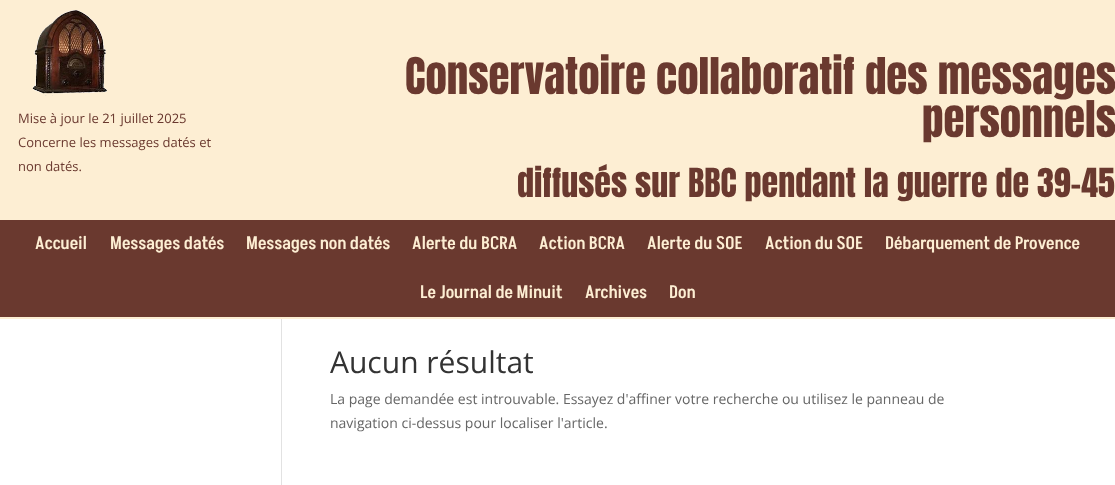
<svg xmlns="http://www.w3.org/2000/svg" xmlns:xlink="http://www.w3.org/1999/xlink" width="1115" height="485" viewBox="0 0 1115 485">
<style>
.cls-1{font:13px Open Sans;fill:#6a392f}
.cls-2{font:43px Anton;fill:#6a392f}
.cls-3{font:34px Anton;fill:#6a392f}
.cls-4{font:500 18px Akshar;fill:#fdeed3}
.cls-5{font:30px Open Sans;fill:#333333}
.cls-6{font:14px Open Sans;fill:#666666}
</style>
<rect width="100%" height="100%" fill="#ffffff"/>
<rect fill="#fdeed3" x="0" y="0" width="1115" height="319"/>
<image xlink:href="image0.png" x="32" y="10" width="75" height="86"/>
<rect fill="#6a392f" x="0" y="220" width="1115" height="97"/>
<rect fill="#e2e2e2" x="281" y="319" width="1" height="166"/>
<text class="cls-1"><tspan x="18" y="123">Mise à jour le 21 juillet 2025</tspan><tspan x="18" y="147">Concerne les messages datés et</tspan><tspan x="18" y="171">non datés.</tspan></text>
<text class="cls-2" x="405" y="94">Conservatoire collaboratif des messages</text>
<text class="cls-2" x="922" y="137">personnels</text>
<text class="cls-3" x="517" y="197">diffusés sur BBC pendant la guerre de 39-45</text>
<text class="cls-4" x="35" y="249">Accueil</text>
<text class="cls-4" x="110" y="249">Messages datés</text>
<text class="cls-4" x="246" y="249">Messages non datés</text>
<text class="cls-4" x="412" y="249">Alerte du BCRA</text>
<text class="cls-4" x="539" y="249">Action BCRA</text>
<text class="cls-4" x="647" y="249">Alerte du SOE</text>
<text class="cls-4" x="765" y="249">Action du SOE</text>
<text class="cls-4" x="885" y="249">Débarquement de Provence</text>
<text class="cls-4" x="420" y="298">Le Journal de Minuit</text>
<text class="cls-4" x="585" y="298">Archives</text>
<text class="cls-4" x="669" y="298">Don</text>
<text class="cls-5" x="330" y="373">Aucun résultat</text>
<text class="cls-6"><tspan x="330" y="404">La page demandée est introuvable. Essayez d'affiner votre recherche ou utilisez le panneau de</tspan><tspan x="330" y="428">navigation ci-dessus pour localiser l'article.</tspan></text>
</svg>
